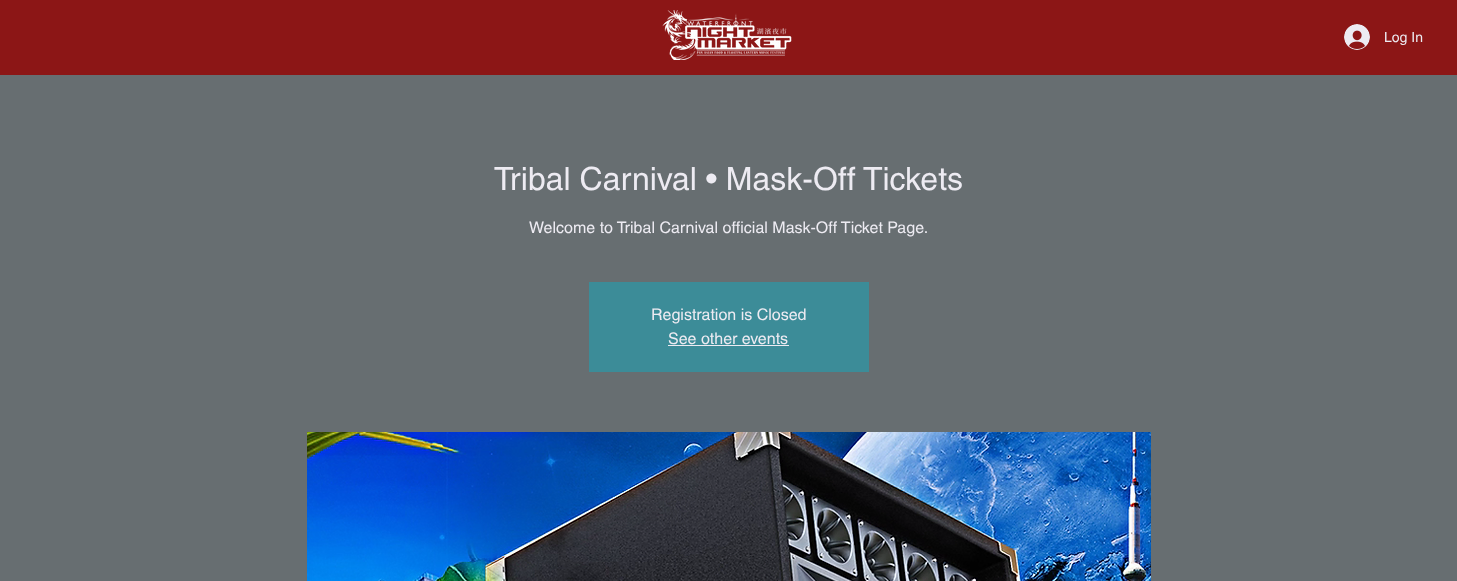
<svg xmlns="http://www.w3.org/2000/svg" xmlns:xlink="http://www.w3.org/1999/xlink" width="1457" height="581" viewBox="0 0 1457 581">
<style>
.cls-1{font:14px helvetica;fill:#edebf2}
.cls-2{font:32px helvetica;fill:#edebf2}
.cls-3{font:16px helvetica;fill:#edebf2}
</style>
<rect width="100%" height="100%" fill="#676e71"/>
<rect fill="#8c1616" x="0" y="0" width="1457" height="75"/>
<image xlink:href="image0.png" x="662" y="10" width="130" height="50"/>
<image xlink:href="image1.png" x="1344" y="24" width="26" height="26"/>
<rect fill="#3c8c98" x="589" y="282" width="280" height="90"/>
<rect fill="#edebf2" x="668" y="345" width="121" height="1"/>
<image xlink:href="image2.png" x="307" y="432" width="844" height="149"/>
<text class="cls-1" x="1384" y="42">Log In</text>
<text class="cls-2" x="494" y="190">Tribal Carnival • Mask-Off Tickets</text>
<text class="cls-3" x="529" y="233">Welcome to Tribal Carnival official Mask-Off Ticket Page.</text>
<text class="cls-3" x="651" y="320">Registration is Closed</text>
<text class="cls-3" x="668" y="344">See other events</text>
</svg>
